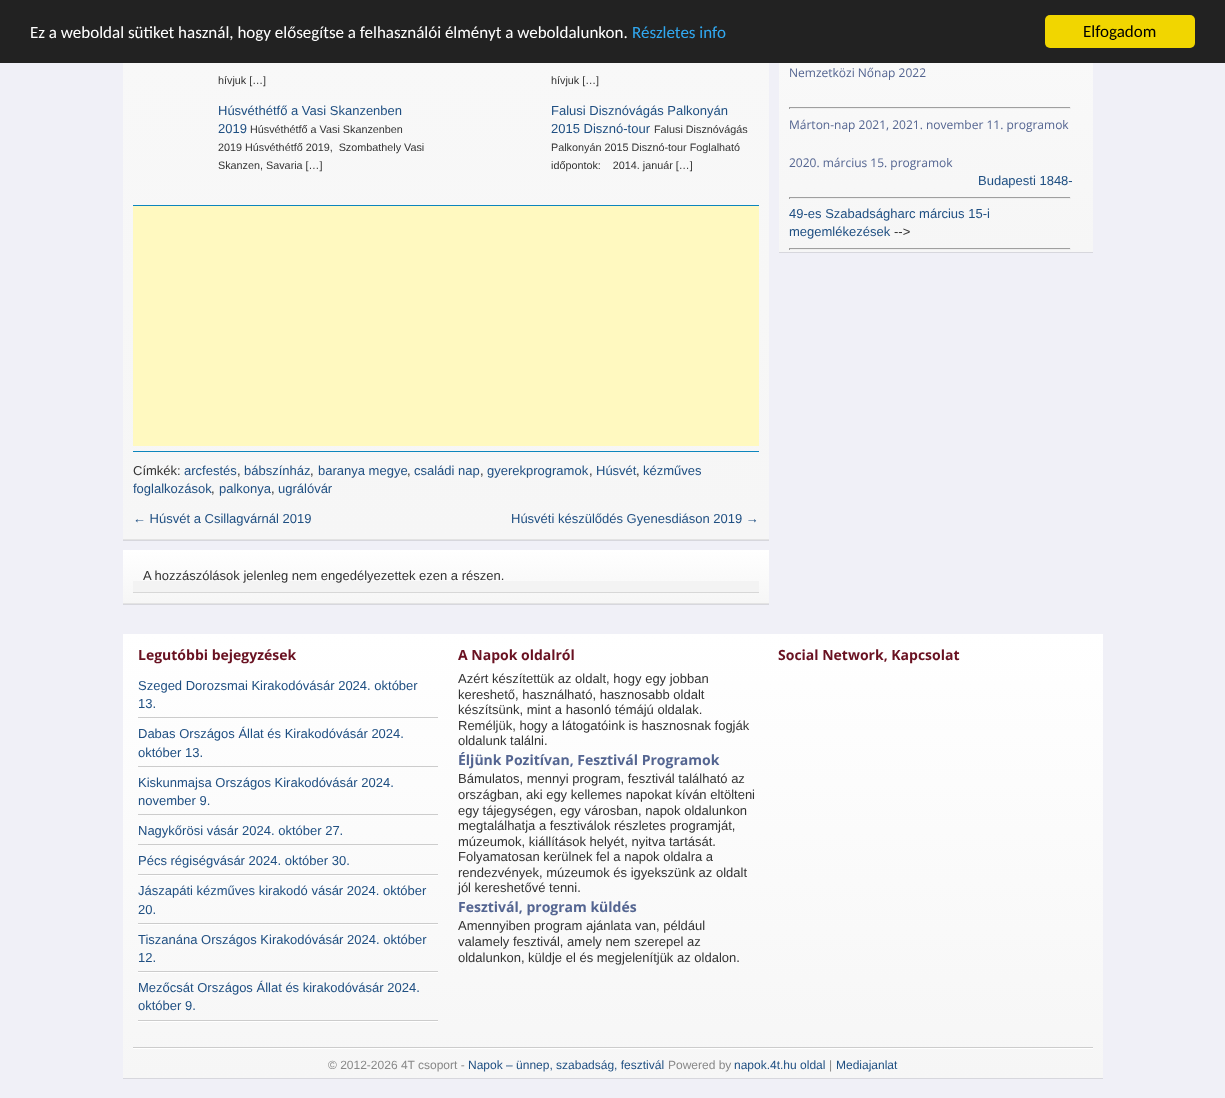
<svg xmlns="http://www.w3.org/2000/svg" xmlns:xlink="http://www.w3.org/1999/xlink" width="1225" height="1098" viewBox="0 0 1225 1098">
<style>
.cls-1{font:17px Carlito;fill:#ffffff}
.cls-2{font:17px Carlito;fill:#31a8f0}
.cls-3{font:17px Carlito;fill:#000000}
.cls-4{font:10.8px Liberation Sans;fill:#333333}
.cls-5{font:13px Liberation Sans;fill:#1f4f82}
.cls-6{font:13px Liberation Sans;fill:#333333}
.cls-7{font:12px Open Sans;fill:#546591}
.cls-8{font:bold 14px Open Sans;fill:#691121}
.cls-9{font:bold 14px Open Sans;fill:#546591}
.cls-10{font:12px Liberation Sans;fill:#888888}
.cls-11{font:12px Liberation Sans;fill:#1f4f82}
</style>
<defs>
<linearGradient id="g1" gradientUnits="userSpaceOnUse" x1="446" y1="-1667" x2="446" y2="539"><stop offset="0" stop-color="#ffffff"/><stop offset="1" stop-color="#f6f6f6"/></linearGradient>
<linearGradient id="g2" gradientUnits="userSpaceOnUse" x1="446" y1="550" x2="446" y2="603"><stop offset="0" stop-color="#ffffff"/><stop offset="1" stop-color="#f6f6f6"/></linearGradient>
<linearGradient id="g3" gradientUnits="userSpaceOnUse" x1="936" y1="-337" x2="936" y2="252"><stop offset="0" stop-color="#ffffff"/><stop offset="1" stop-color="#f6f6f6"/></linearGradient>
<linearGradient id="g4" gradientUnits="userSpaceOnUse" x1="613" y1="634" x2="613" y2="1078"><stop offset="0" stop-color="#ffffff"/><stop offset="1" stop-color="#f6f6f6"/></linearGradient>
</defs>
<rect width="100%" height="100%" fill="#f0f0f7"/>
<rect fill="#000000" fill-opacity="0.1" filter="blur(0.5px)" x="123" y="-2" width="646" height="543"/>
<rect fill="#000000" fill-opacity="0.1" filter="blur(0.5px)" x="779" y="-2" width="314" height="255"/>
<rect fill="#222222" x="0" y="0" width="1225" height="63"/>
<rect fill="#f1d600" x="1045" y="15" width="150" height="33" rx="5"/>
<rect fill="url(#g1)" x="123" y="63" width="646" height="476"/>
<rect fill="#e3e3e3" x="123" y="539" width="646" height="1"/>
<rect fill="#0d86bd" x="133" y="205" width="626" height="1"/>
<rect fill="#0d86bd" x="133" y="451" width="626" height="1"/>
<rect fill="#fff9c0" x="133" y="206" width="626" height="240"/>
<rect fill="#000000" fill-opacity="0.1" filter="blur(0.5px)" x="123" y="551" width="646" height="54"/>
<rect fill="url(#g2)" x="123" y="550" width="646" height="53"/>
<rect fill="#e3e3e3" x="123" y="603" width="646" height="1"/>
<rect fill="#f3f3f3" x="133" y="581" width="626" height="11"/>
<rect fill="#d7d7d7" x="133" y="592" width="626" height="1"/>
<rect fill="url(#g3)" x="779" y="63" width="314" height="189"/>
<rect fill="#9f9f9f" x="789" y="107" width="282" height="1"/>
<rect fill="#eeeeee" x="1070" y="107" width="1" height="2"/>
<rect fill="#eeeeee" x="789" y="108" width="282" height="1"/>
<rect fill="#9f9f9f" x="789" y="107" width="1" height="2"/>
<rect fill="#9f9f9f" x="789" y="197" width="282" height="1"/>
<rect fill="#eeeeee" x="1070" y="197" width="1" height="2"/>
<rect fill="#eeeeee" x="789" y="198" width="282" height="1"/>
<rect fill="#9f9f9f" x="789" y="197" width="1" height="2"/>
<rect fill="#9f9f9f" x="789" y="248" width="282" height="1"/>
<rect fill="#eeeeee" x="1070" y="248" width="1" height="2"/>
<rect fill="#eeeeee" x="789" y="249" width="282" height="1"/>
<rect fill="#9f9f9f" x="789" y="248" width="1" height="2"/>
<rect fill="#000000" fill-opacity="0.1" filter="blur(0.5px)" x="123" y="635" width="980" height="444"/>
<rect fill="url(#g4)" x="123" y="634" width="980" height="444"/>
<rect fill="#cccccc" x="138" y="717" width="300" height="1"/>
<rect fill="#cccccc" x="138" y="766" width="300" height="1"/>
<rect fill="#cccccc" x="138" y="814" width="300" height="1"/>
<rect fill="#cccccc" x="138" y="844" width="300" height="1"/>
<image xlink:href="image0.png" x="138" y="874" width="300" height="2"/>
<image xlink:href="image0.png" x="138" y="923" width="300" height="2"/>
<image xlink:href="image0.png" x="138" y="971" width="300" height="2"/>
<image xlink:href="image0.png" x="138" y="1020" width="300" height="2"/>
<image xlink:href="image1.png" x="133" y="1047" width="960" height="2"/>
<text class="cls-1" x="30" y="38">Ez a weboldal sütiket használ, hogy elősegítse a felhasználói élményt a weboldalunkon.</text>
<text class="cls-2" x="632" y="38">Részletes info</text>
<text class="cls-3" x="1083" y="37">Elfogadom</text>
<text class="cls-4" x="218" y="84">hívjuk […]</text>
<text class="cls-4" x="551" y="84">hívjuk […]</text>
<text class="cls-5"><tspan x="218" y="115">Húsvéthétfő a Vasi Skanzenben</tspan><tspan x="218" y="133">2019</tspan></text>
<text class="cls-4" x="250" y="133">Húsvéthétfő a Vasi Skanzenben</text>
<text class="cls-4" xml:space="preserve"><tspan x="218" y="151">2019 Húsvéthétfő 2019,  Szombathely Vasi</tspan><tspan x="218" y="169">Skanzen, Savaria […]</tspan></text>
<text class="cls-5"><tspan x="551" y="115">Falusi Disznóvágás Palkonyán</tspan><tspan x="551" y="133">2015 Disznó-tour</tspan></text>
<text class="cls-4" x="654" y="133">Falusi Disznóvágás</text>
<text class="cls-4" xml:space="preserve"><tspan x="551" y="151">Palkonyán 2015 Disznó-tour Foglalható</tspan><tspan x="551" y="169">időpontok:    2014. január […]</tspan></text>
<text class="cls-6" x="133" y="475">Címkék:</text>
<text class="cls-5" x="184" y="475">arcfestés</text>
<text class="cls-6" x="237" y="475">,</text>
<text class="cls-5" x="244" y="475">bábszínház</text>
<text class="cls-6" x="310" y="475">,</text>
<text class="cls-5" x="318" y="475">baranya megye</text>
<text class="cls-6" x="407" y="475">,</text>
<text class="cls-5" x="414" y="475">családi nap</text>
<text class="cls-6" x="480" y="475">,</text>
<text class="cls-5" x="487" y="475">gyerekprogramok</text>
<text class="cls-6" x="589" y="475">,</text>
<text class="cls-5" x="596" y="475">Húsvét</text>
<text class="cls-6" x="636" y="475">,</text>
<text class="cls-5" x="643" y="475">kézműves</text>
<text class="cls-5" x="133" y="493">foglalkozások</text>
<text class="cls-6" x="211" y="493">,</text>
<text class="cls-5" x="219" y="493">palkonya</text>
<text class="cls-6" x="271" y="493">,</text>
<text class="cls-5" x="278" y="493">ugrálóvár</text>
<text class="cls-5" x="133" y="523">← Húsvét a Csillagvárnál 2019</text>
<text class="cls-5" x="511" y="523">Húsvéti készülődés Gyenesdiáson 2019 →</text>
<text class="cls-6" x="143" y="580">A hozzászólások jelenleg nem engedélyezettek ezen a részen.</text>
<text class="cls-7" x="789" y="77">Nemzetközi Nőnap 2022</text>
<text class="cls-7" x="789" y="129">Márton-nap 2021, 2021. november 11. programok</text>
<text class="cls-7" x="789" y="167">2020. március 15. programok</text>
<text class="cls-5" x="978" y="185">Budapesti 1848-</text>
<text class="cls-5"><tspan x="789" y="218">49-es Szabadságharc március 15-i</tspan><tspan x="789" y="236">megemlékezések</tspan></text>
<text class="cls-6" x="894" y="236">--&gt;</text>
<text class="cls-8" x="138" y="660">Legutóbbi bejegyzések</text>
<text class="cls-5"><tspan x="138" y="690">Szeged Dorozsmai Kirakodóvásár 2024. október</tspan><tspan x="138" y="708">13.</tspan></text>
<text class="cls-5"><tspan x="138" y="738">Dabas Országos Állat és Kirakodóvásár 2024.</tspan><tspan x="138" y="757">október 13.</tspan></text>
<text class="cls-5"><tspan x="138" y="787">Kiskunmajsa Országos Kirakodóvásár 2024.</tspan><tspan x="138" y="805">november 9.</tspan></text>
<text class="cls-5" x="138" y="835">Nagykőrösi vásár 2024. október 27.</text>
<text class="cls-5" x="138" y="865">Pécs régiségvásár 2024. október 30.</text>
<text class="cls-5"><tspan x="138" y="895">Jászapáti kézműves kirakodó vásár 2024. október</tspan><tspan x="138" y="914">20.</tspan></text>
<text class="cls-5"><tspan x="138" y="944">Tiszanána Országos Kirakodóvásár 2024. október</tspan><tspan x="138" y="962">12.</tspan></text>
<text class="cls-5"><tspan x="138" y="992">Mezőcsát Országos Állat és kirakodóvásár 2024.</tspan><tspan x="138" y="1010">október 9.</tspan></text>
<text class="cls-8" x="458" y="660">A Napok oldalról</text>
<text class="cls-6"><tspan x="458" y="683">Azért készítettük az oldalt, hogy egy jobban</tspan><tspan x="458" y="699">kereshető, használható, hasznosabb oldalt</tspan><tspan x="458" y="714">készítsünk, mint a hasonló témájú oldalak.</tspan><tspan x="458" y="730">Reméljük, hogy a látogatóink is hasznosnak fogják</tspan><tspan x="458" y="745">oldalunk találni.</tspan></text>
<text class="cls-9" x="458" y="765">Éljünk Pozitívan, Fesztivál Programok</text>
<text class="cls-6"><tspan x="458" y="783">Bámulatos, mennyi program, fesztivál található az</tspan><tspan x="458" y="799">országban, aki egy kellemes napokat kíván eltölteni</tspan><tspan x="458" y="815">egy tájegységen, egy városban, napok oldalunkon</tspan><tspan x="458" y="830">megtalálhatja a fesztiválok részletes programját,</tspan><tspan x="458" y="846">múzeumok, kiállítások helyét, nyitva tartását.</tspan><tspan x="458" y="861">Folyamatosan kerülnek fel a napok oldalra a</tspan><tspan x="458" y="877">rendezvények, múzeumok és igyekszünk az oldalt</tspan><tspan x="458" y="892">jól kereshetővé tenni.</tspan></text>
<text class="cls-9" x="458" y="912">Fesztivál, program küldés</text>
<text class="cls-6"><tspan x="458" y="930">Amennyiben program ajánlata van, például</tspan><tspan x="458" y="946">valamely fesztivál, amely nem szerepel az</tspan><tspan x="458" y="962">oldalunkon, küldje el és megjelenítjük az oldalon.</tspan></text>
<text class="cls-8" x="778" y="660">Social Network, Kapcsolat</text>
<text class="cls-10" x="328" y="1069">© 2012-2026 4T csoport -</text>
<text class="cls-11" x="468" y="1069">Napok – ünnep, szabadság, fesztivál</text>
<text class="cls-10" x="668" y="1069">Powered by</text>
<text class="cls-11" x="734" y="1069">napok.4t.hu oldal</text>
<text class="cls-10" x="829" y="1069">|</text>
<text class="cls-11" x="836" y="1069">Mediajanlat</text>
</svg>
